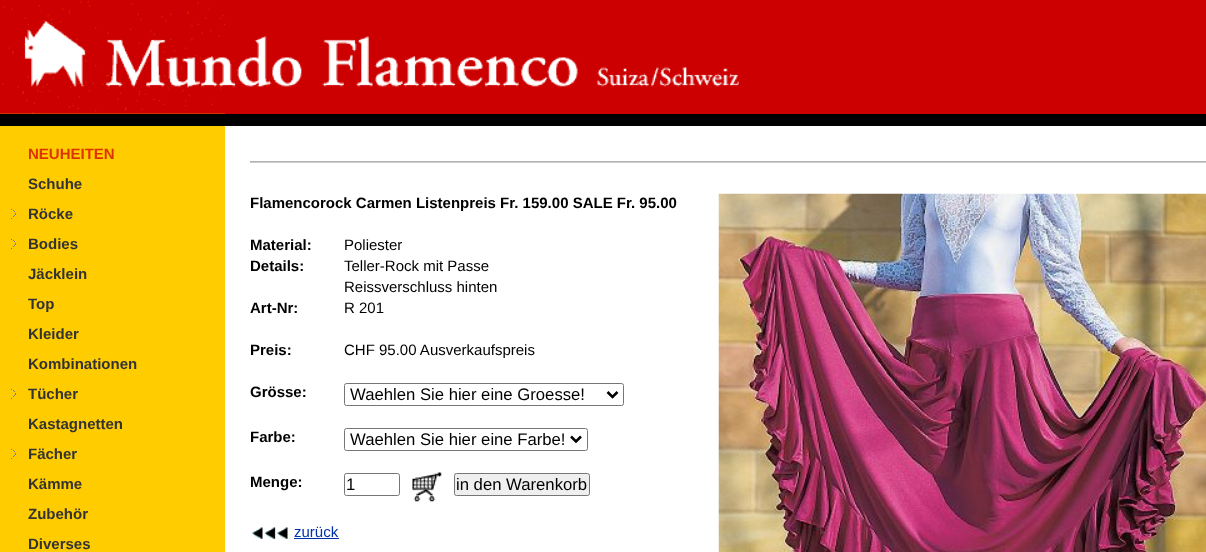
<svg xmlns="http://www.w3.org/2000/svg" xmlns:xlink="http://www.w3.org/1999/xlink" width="1206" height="552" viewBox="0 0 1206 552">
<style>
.cls-1{font:bold 15px Liberation Sans;fill:#dd3300}
.cls-2{font:bold 15px Liberation Sans;fill:#333333}
.cls-3{font:bold 15px Liberation Sans;fill:#000000}
.cls-4{font:15px Liberation Sans;fill:#000000}
.cls-5{font:16.7px Liberation Sans;fill:#000000}
.cls-6{font:15px Liberation Sans;fill:#0033aa}
</style>
<rect width="100%" height="100%" fill="#ffffff"/>
<image xlink:href="image0.png" x="0" y="113" width="225" height="1"/>
<image xlink:href="image1.png" x="0" y="0" width="225" height="114"/>
<rect fill="#cc0000" x="225" y="0" width="981" height="114"/>
<image xlink:href="image2.png" x="225" y="36" width="514" height="51"/>
<rect fill="#000000" x="0" y="114" width="1206" height="12"/>
<rect fill="#ffcc00" x="0" y="126" width="225" height="426"/>
<rect fill="#797979" x="11" y="209" width="1" height="1"/>
<rect fill="#797979" x="11" y="218" width="1" height="1"/>
<rect fill="#797979" x="13" y="210" width="1" height="1"/>
<rect fill="#797979" x="13" y="216" width="1" height="1"/>
<rect fill="#797979" x="14" y="211" width="1" height="1"/>
<rect fill="#797979" x="14" y="215" width="1" height="1"/>
<rect fill="#797979" x="15" y="213" width="1" height="2"/>
<rect fill="#797979" x="11" y="239" width="1" height="1"/>
<rect fill="#797979" x="11" y="248" width="1" height="1"/>
<rect fill="#797979" x="13" y="240" width="1" height="1"/>
<rect fill="#797979" x="13" y="246" width="1" height="1"/>
<rect fill="#797979" x="14" y="241" width="1" height="1"/>
<rect fill="#797979" x="14" y="245" width="1" height="1"/>
<rect fill="#797979" x="15" y="243" width="1" height="2"/>
<rect fill="#797979" x="11" y="389" width="1" height="1"/>
<rect fill="#797979" x="11" y="398" width="1" height="1"/>
<rect fill="#797979" x="13" y="390" width="1" height="1"/>
<rect fill="#797979" x="13" y="396" width="1" height="1"/>
<rect fill="#797979" x="14" y="391" width="1" height="1"/>
<rect fill="#797979" x="14" y="395" width="1" height="1"/>
<rect fill="#797979" x="15" y="393" width="1" height="2"/>
<rect fill="#797979" x="11" y="449" width="1" height="1"/>
<rect fill="#797979" x="11" y="458" width="1" height="1"/>
<rect fill="#797979" x="13" y="450" width="1" height="1"/>
<rect fill="#797979" x="13" y="456" width="1" height="1"/>
<rect fill="#797979" x="14" y="451" width="1" height="1"/>
<rect fill="#797979" x="14" y="455" width="1" height="1"/>
<rect fill="#797979" x="15" y="453" width="1" height="2"/>
<image xlink:href="image3.png" x="250" y="161" width="956" height="2"/>
<rect fill="none" stroke="#767676" x="344.5" y="383.5" width="279" height="22" rx="2"/>
<path fill="none" stroke="#000000" stroke-width="2.5" d="M607.5 392L612.5 397L617.5 392"/>
<rect fill="none" stroke="#767676" x="344.5" y="428.5" width="243" height="22" rx="2"/>
<path fill="none" stroke="#000000" stroke-width="2.5" d="M571 436.5L576 441.5L581 436.5"/>
<rect fill="none" stroke="#767676" x="344.5" y="473.5" width="55" height="22" rx="2"/>
<image xlink:href="image4.png" x="412" y="472" width="30" height="30"/>
<rect fill="#efefef" stroke="#767676" x="454.5" y="473.5" width="135" height="22" rx="2"/>
<image xlink:href="image5.png" x="252" y="527" width="36" height="12"/>
<rect fill="#0033aa" x="294" y="538" width="45" height="1"/>
<image xlink:href="image6.png" x="718" y="193" width="488" height="359"/>
<text class="cls-1" x="28" y="159">NEUHEITEN</text>
<text class="cls-2" x="28" y="189">Schuhe</text>
<text class="cls-2" x="28" y="219">Röcke</text>
<text class="cls-2" x="28" y="249">Bodies</text>
<text class="cls-2" x="28" y="279">Jäcklein</text>
<text class="cls-2" x="28" y="309">Top</text>
<text class="cls-2" x="28" y="339">Kleider</text>
<text class="cls-2" x="28" y="369">Kombinationen</text>
<text class="cls-2" x="28" y="399">Tücher</text>
<text class="cls-2" x="28" y="429">Kastagnetten</text>
<text class="cls-2" x="28" y="459">Fächer</text>
<text class="cls-2" x="28" y="489">Kämme</text>
<text class="cls-2" x="28" y="519">Zubehör</text>
<text class="cls-2" x="28" y="549">Diverses</text>
<text class="cls-3" x="250" y="208">Flamencorock Carmen Listenpreis Fr. 159.00 SALE Fr. 95.00</text>
<text class="cls-3" x="250" y="250">Material:</text>
<text class="cls-4" x="344" y="250">Poliester</text>
<text class="cls-3" x="250" y="271">Details:</text>
<text class="cls-4"><tspan x="344" y="271">Teller-Rock mit Passe</tspan><tspan x="344" y="292">Reissverschluss hinten</tspan></text>
<text class="cls-3" x="250" y="313">Art-Nr:</text>
<text class="cls-4" x="344" y="313">R 201</text>
<text class="cls-3" x="250" y="355">Preis:</text>
<text class="cls-4" x="344" y="355">CHF 95.00 Ausverkaufspreis</text>
<text class="cls-3" x="250" y="397">Grösse:</text>
<text class="cls-5" x="350" y="400">Waehlen Sie hier eine Groesse!</text>
<text class="cls-3" x="250" y="442">Farbe:</text>
<text class="cls-5" x="350" y="445">Waehlen Sie hier eine Farbe!</text>
<text class="cls-3" x="250" y="487">Menge:</text>
<text class="cls-5" x="346" y="490">1</text>
<text class="cls-5" x="456" y="490">in den Warenkorb</text>
<text class="cls-6" x="294" y="537">zurück</text>
</svg>
